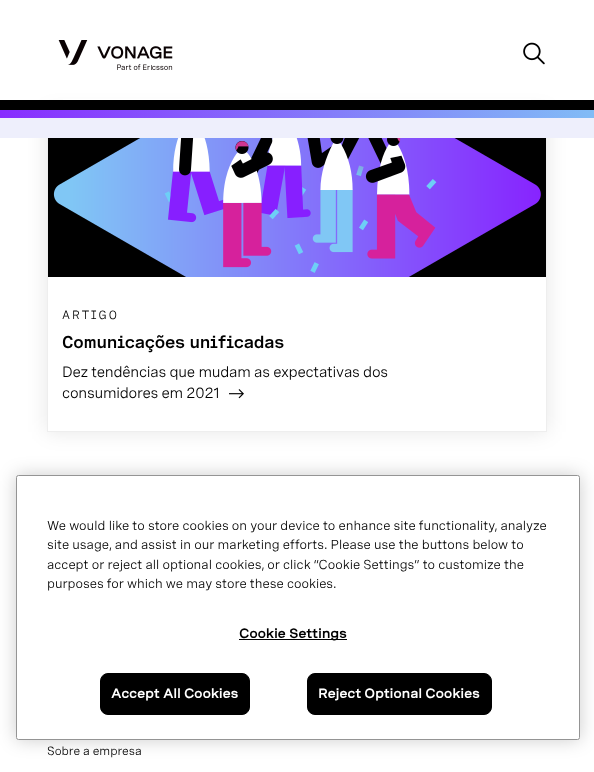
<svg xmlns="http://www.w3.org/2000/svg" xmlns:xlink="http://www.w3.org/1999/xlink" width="594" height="772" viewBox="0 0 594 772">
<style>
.cls-1{font:12px 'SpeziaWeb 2';letter-spacing:2px;fill:#000000}
.cls-2{font:600 17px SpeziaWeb;letter-spacing:-0.25px;fill:#000000}
.cls-3{font:15px SpeziaWeb;letter-spacing:-0.25px;fill:#000000}
.cls-4{font:12px SpeziaWeb;fill:#000000}
.cls-5{font:13px SpeziaWeb;fill:#000000}
.cls-6{font:bold 13px SpeziaWeb;letter-spacing:0.1px;fill:#000000}
.cls-7{font:bold 13px SpeziaWeb;letter-spacing:0.1px;fill:#ffffff}
</style>
<defs>
<clipPath id="clip1"><path d="M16 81H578V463H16ZM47 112H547V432H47Z" clip-rule="evenodd"/></clipPath>
<linearGradient id="g1" gradientUnits="userSpaceOnUse" x1="-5.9" y1="119" x2="594" y2="109"><stop offset="0" stop-color="#882bff"/><stop offset="1" stop-color="#81bcf6"/></linearGradient>
</defs>
<rect width="100%" height="100%" fill="#ffffff"/>
<g clip-path="url(#clip1)">
<rect fill="#000000" fill-opacity="0.1" filter="blur(10px)" x="47" y="112" width="500" height="320"/>
</g>
<rect fill="#ffffff" x="63" y="99" width="468" height="1"/>
<image xlink:href="image0.png" x="58" y="40" width="115" height="30"/>
<image xlink:href="image1.png" x="523" y="42" width="22" height="23"/>
<rect fill="#000000" x="0" y="100" width="594" height="10"/>
<rect fill="none" stroke="#eeeeee" x="47.5" y="112.5" width="499" height="319"/>
<rect fill="url(#g1)" x="0" y="110" width="594" height="8"/>
<rect fill="#eeeffc" x="0" y="118" width="594" height="20"/>
<rect fill="#000000" x="48" y="138" width="498" height="139"/>
<image xlink:href="image2.png" x="53" y="138" width="488" height="139"/>
<image xlink:href="image3.png" x="229" y="389" width="15" height="10"/>
<rect fill="#000000" fill-opacity="0.2" filter="blur(9px)" x="16" y="475" width="564" height="265" rx="2.5"/>
<rect fill="#ffffff" stroke="#949494" x="16.5" y="475.5" width="563" height="264" rx="2"/>
<rect fill="#000000" x="239" y="639" width="108" height="1"/>
<rect fill="#000000" stroke="#000000" x="100.5" y="673.5" width="149" height="41" rx="7.5"/>
<rect fill="#000000" stroke="#000000" x="307.5" y="673.5" width="184" height="41" rx="7.5"/>
<text class="cls-1" x="62" y="319">ARTIGO</text>
<text class="cls-2" x="62" y="348">Comunicações unificadas</text>
<text class="cls-3"><tspan x="62" y="377">Dez tendências que mudam as expectativas dos</tspan><tspan x="62" y="398">consumidores em 2021</tspan></text>
<text class="cls-4" x="47" y="755">Sobre a empresa</text>
<text class="cls-5"><tspan x="47" y="530">We would like to store cookies on your device to enhance site functionality, analyze</tspan><tspan x="47" y="549">site usage, and assist in our marketing efforts. Please use the buttons below to</tspan><tspan x="47" y="569">accept or reject all optional cookies, or click “Cookie Settings” to customize the</tspan><tspan x="47" y="588">purposes for which we may store these cookies.</tspan></text>
<text class="cls-6" x="239" y="638">Cookie Settings</text>
<text class="cls-7" x="111" y="698">Accept All Cookies</text>
<text class="cls-7" x="318" y="698">Reject Optional Cookies</text>
</svg>
